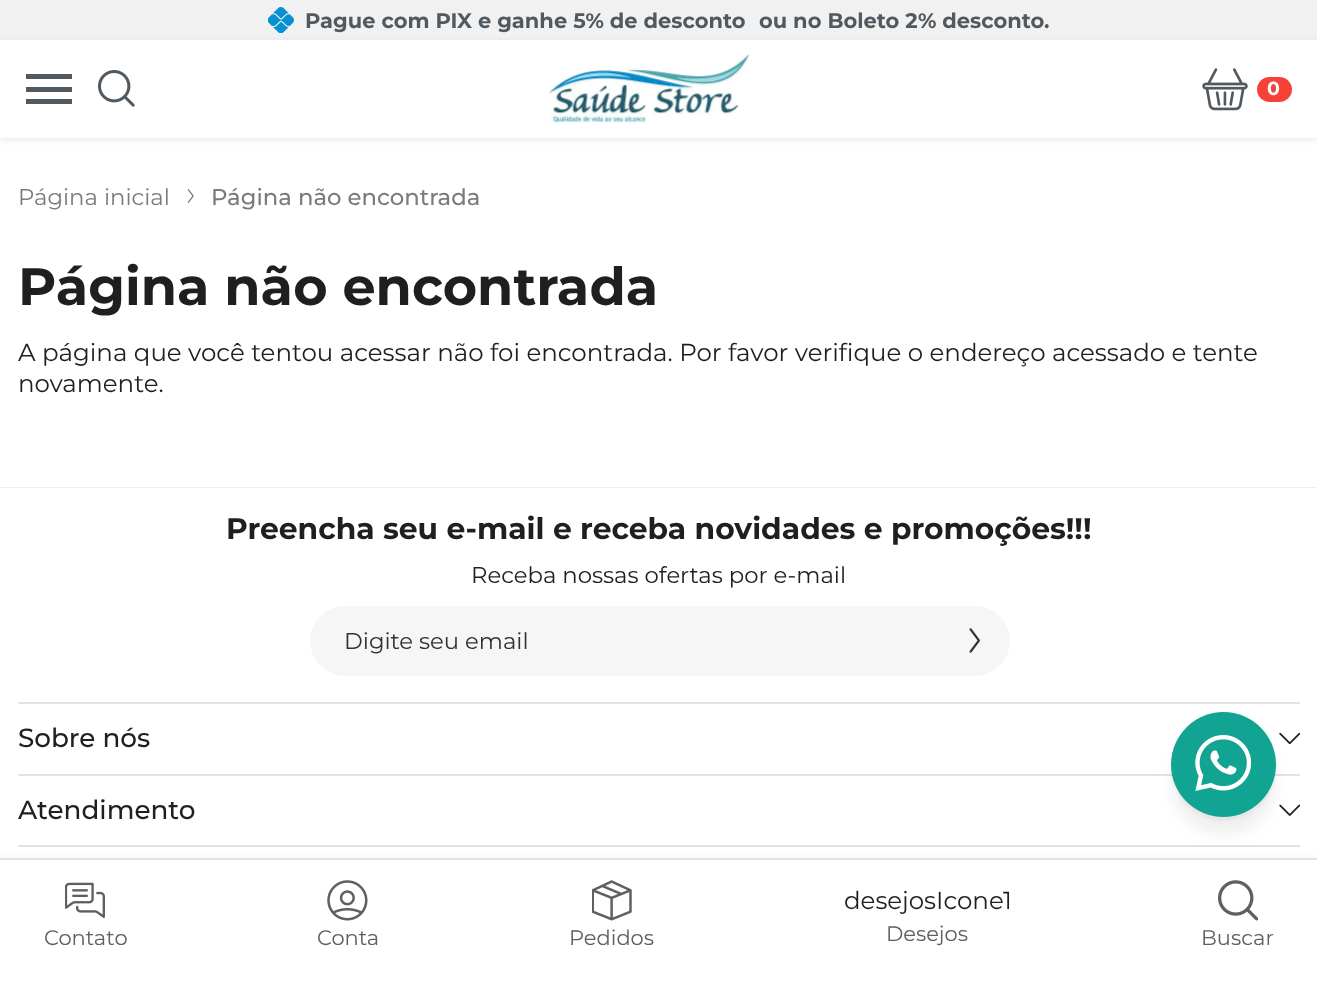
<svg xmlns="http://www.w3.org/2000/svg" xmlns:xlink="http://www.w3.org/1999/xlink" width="1317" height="981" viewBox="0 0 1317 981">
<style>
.cls-1{font:bold 21px Montserrat;fill:#515960}
.cls-2{font:bold 19px Montserrat;fill:#ffffff}
.cls-3{font:22.75px Montserrat;fill:#7b7b7b}
.cls-4{font:500 22.75px Montserrat;fill:#7b7b7b}
.cls-5{font:bold 52.5px Montserrat;fill:#201f1f}
.cls-6{font:24.5px Montserrat;fill:#201f1f}
.cls-7{font:bold 29.75px Montserrat;fill:#201f1f}
.cls-8{font:22.75px Montserrat;fill:#201f1f}
.cls-9{font:22.75px Montserrat;fill:#323232}
.cls-10{font:500 26.25px Montserrat;fill:#201f1f}
.cls-11{font:21px Montserrat;fill:#606060}
</style>
<rect width="100%" height="100%" fill="#ffffff"/>
<rect fill="#f1f1f1" x="0" y="0" width="1317" height="40"/>
<image xlink:href="image0.png" x="268" y="7" width="26" height="26"/>
<rect fill="#525252" fill-opacity="0.13" filter="blur(3.5px)" x="0" y="42" width="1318" height="98"/>
<rect fill="#ffffff" x="0" y="40" width="1317" height="98"/>
<rect fill="#efefef" fill-opacity="0.19" x="0" y="137" width="1317" height="1"/>
<rect fill="#515960" x="26" y="99" width="46" height="5"/>
<rect fill="#515960" x="26" y="87" width="46" height="5"/>
<rect fill="#515960" x="26" y="74" width="46" height="5"/>
<image xlink:href="image1.png" x="98" y="70" width="37" height="37"/>
<image xlink:href="image2.png" x="549" y="54" width="201" height="69"/>
<image xlink:href="image3.png" x="1202" y="68" width="46" height="43"/>
<rect fill="#f44336" x="1257" y="77" width="35" height="25" rx="12.5"/>
<image xlink:href="image4.png" x="187" y="189" width="7" height="14"/>
<rect fill="#efefef" x="0" y="487" width="1317" height="1"/>
<rect fill="#f6f6f6" x="310" y="606" width="700" height="70" rx="35"/>
<image xlink:href="image5.png" x="969" y="628" width="11" height="25"/>
<rect fill="#e2e2e2" x="18" y="702" width="1282" height="2"/>
<image xlink:href="image6.png" x="1279" y="732" width="21" height="13"/>
<rect fill="#e2e2e2" x="18" y="774" width="1282" height="2"/>
<image xlink:href="image7.png" x="1279" y="804" width="21" height="12"/>
<rect fill="#e2e2e2" x="18" y="845" width="1282" height="2"/>
<rect fill="#676767" fill-opacity="0.1" filter="blur(7px)" x="1171" y="730" width="105" height="105" rx="52.5"/>
<rect fill="#000000" fill-opacity="0.04" filter="blur(1px)" x="1171" y="716" width="105" height="105" rx="52.5"/>
<circle fill="#11a492" cx="1223.5" cy="764.5" r="52.5"/>
<image xlink:href="image8.png" x="1195" y="735" width="56" height="56"/>
<rect fill="#525252" fill-opacity="0.08" filter="blur(3.5px)" x="0" y="858" width="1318" height="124"/>
<rect fill="#ffffff" x="0" y="860" width="1317" height="121"/>
<rect fill="#e2e2e2" x="0" y="858" width="1317" height="2"/>
<image xlink:href="image9.png" x="65" y="882" width="40" height="36"/>
<image xlink:href="image10.png" x="327" y="880" width="41" height="41"/>
<image xlink:href="image11.png" x="592" y="880" width="40" height="41"/>
<image xlink:href="image12.png" x="1218" y="880" width="40" height="41"/>
<text class="cls-1" x="305" y="28">Pague com PIX e ganhe 5% de desconto</text>
<text class="cls-1" x="759" y="28">ou no Boleto 2% desconto.</text>
<text class="cls-2" x="1267" y="95">0</text>
<text class="cls-3" x="18" y="205">Página inicial</text>
<text class="cls-4" x="211" y="205">Página não encontrada</text>
<text class="cls-5" x="18" y="305">Página não encontrada</text>
<text class="cls-6"><tspan x="18" y="361">A página que você tentou acessar não foi encontrada. Por favor verifique o endereço acessado e tente</tspan><tspan x="18" y="392">novamente.</tspan></text>
<text class="cls-7" x="226" y="539">Preencha seu e-mail e receba novidades e promoções!!!</text>
<text class="cls-8" x="471" y="583">Receba nossas ofertas por e-mail</text>
<text class="cls-9" x="344" y="649">Digite seu email</text>
<text class="cls-10" x="18" y="747">Sobre nós</text>
<text class="cls-10" x="18" y="819">Atendimento</text>
<text class="cls-11" x="44" y="945">Contato</text>
<text class="cls-11" x="317" y="945">Conta</text>
<text class="cls-11" x="569" y="945">Pedidos</text>
<text class="cls-6" x="844" y="909">desejosIcone1</text>
<text class="cls-11" x="886" y="941">Desejos</text>
<text class="cls-11" x="1201" y="945">Buscar</text>
</svg>
